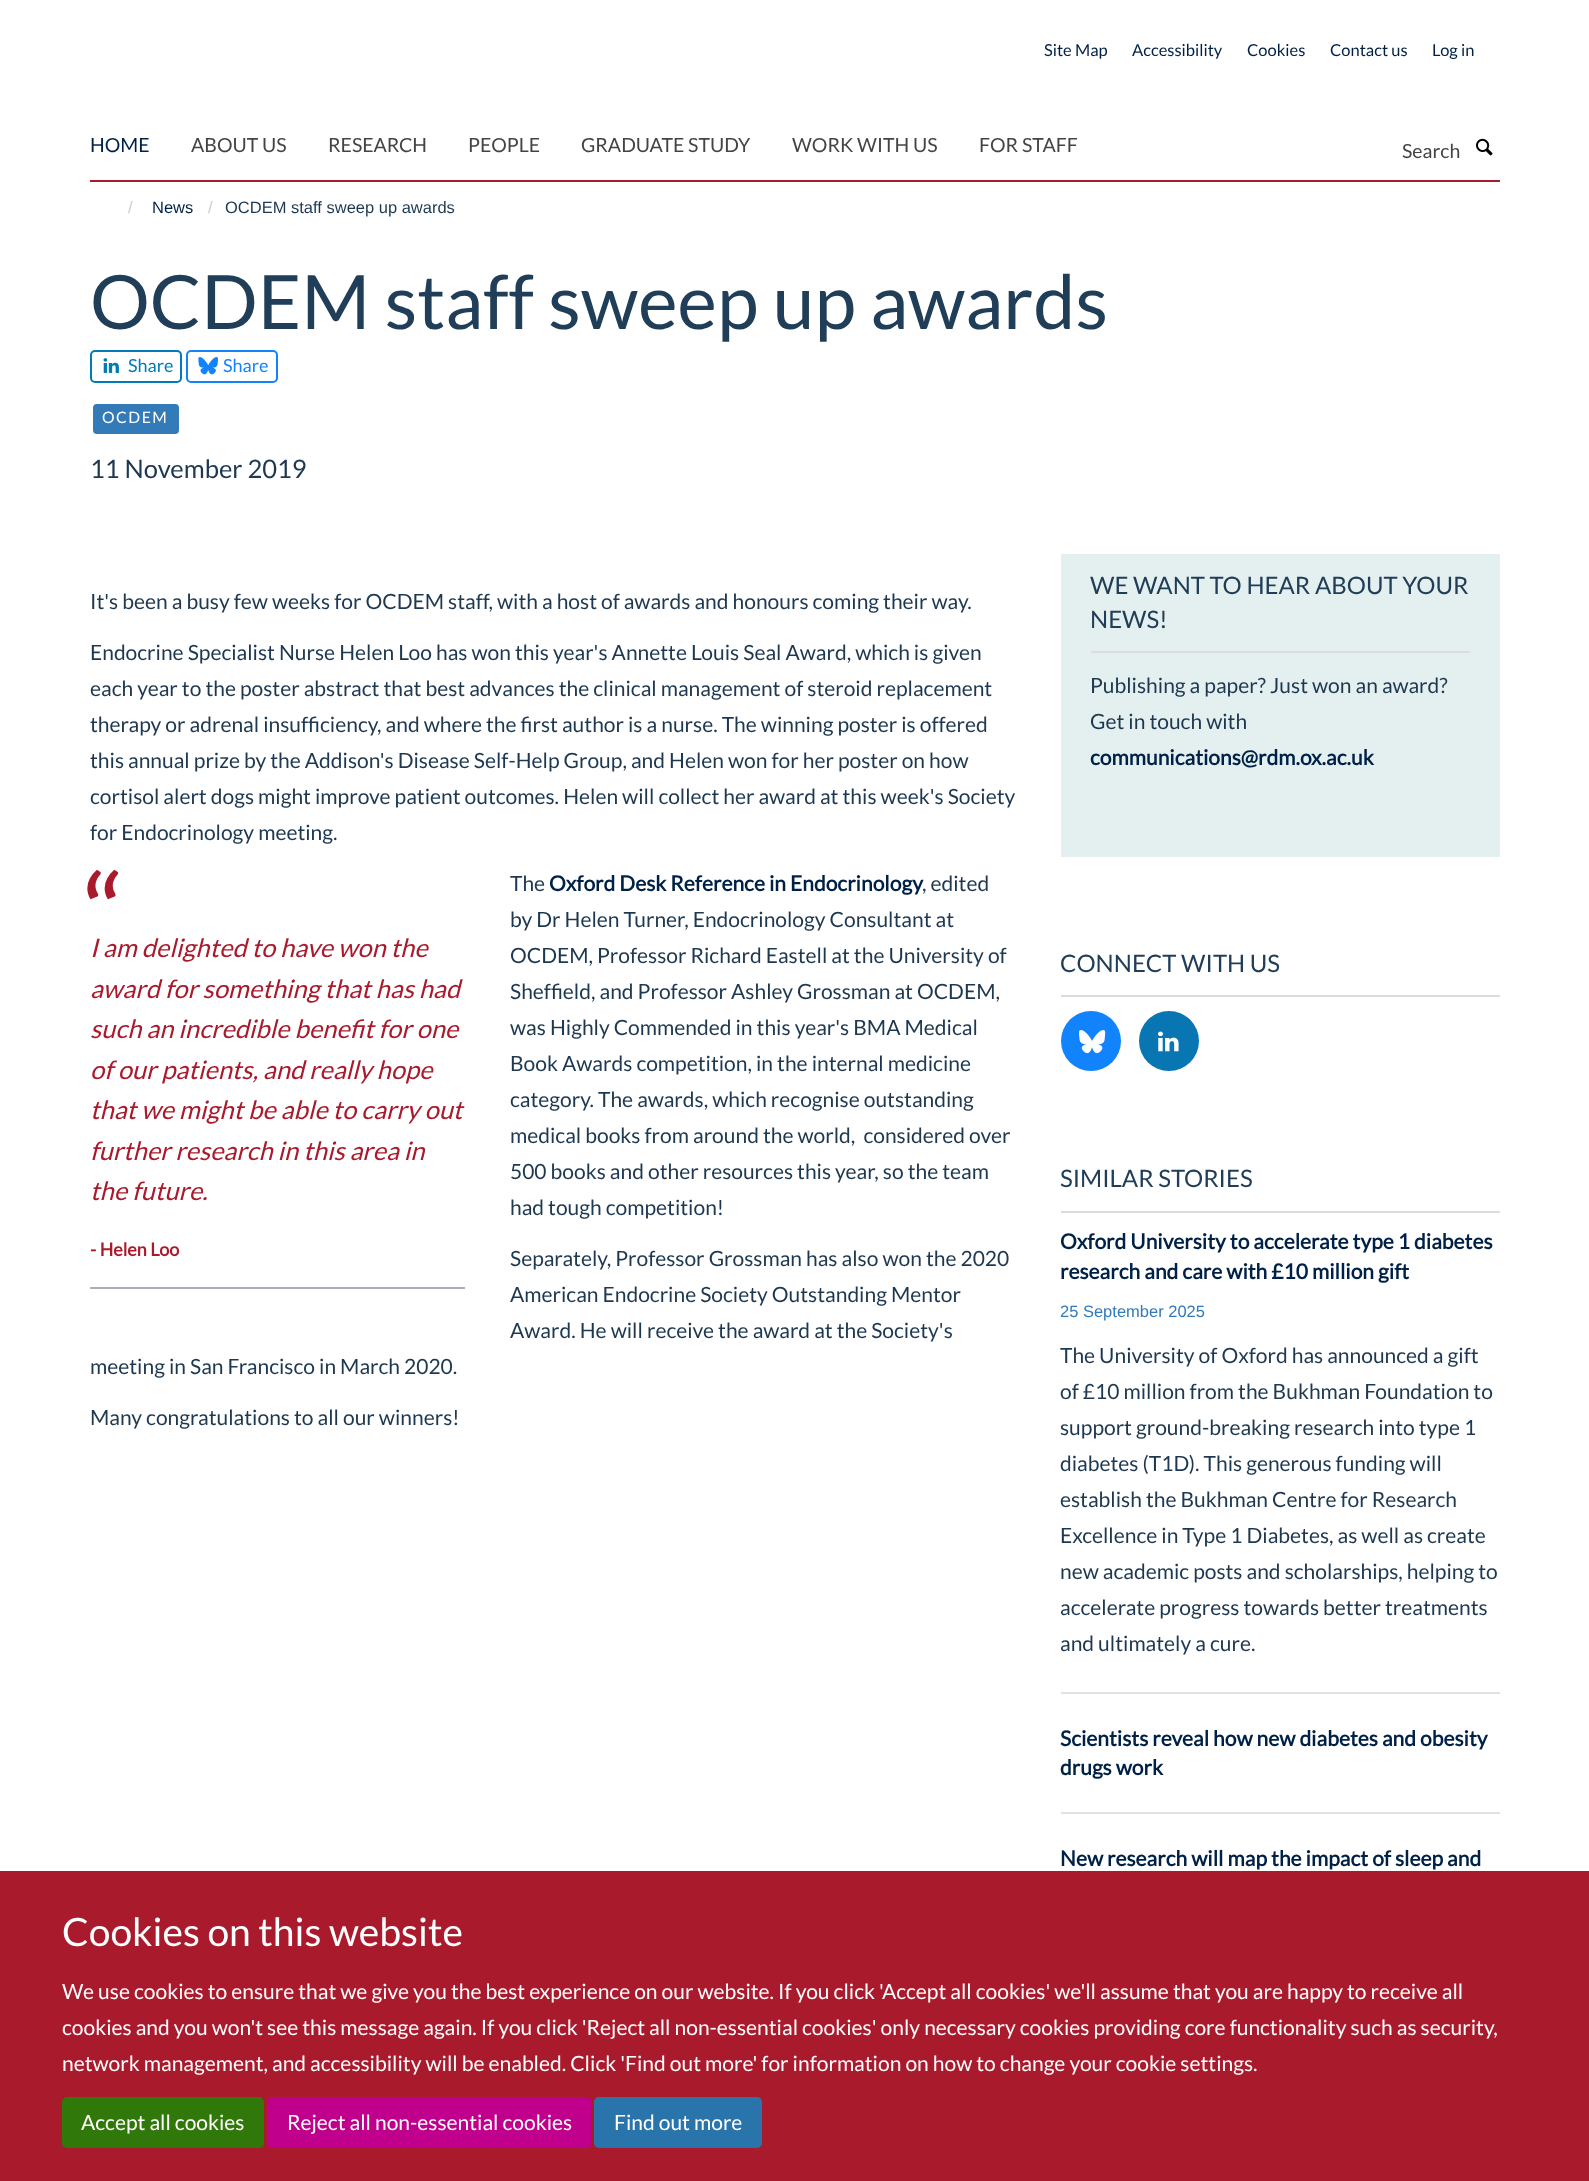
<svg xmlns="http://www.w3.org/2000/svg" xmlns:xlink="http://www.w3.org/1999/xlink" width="1589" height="2181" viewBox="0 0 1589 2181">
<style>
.cls-1{font:16.5px Lato;fill:#002147}
.cls-2{font:19.5px Lato;fill:#002147}
.cls-3{font:19.5px Lato;fill:#444444}
.cls-4{font:16.5px Liberation Sans;fill:#cccccc}
.cls-5{font:16.5px Liberation Sans;fill:#002147}
.cls-6{font:16.5px Liberation Sans;fill:#1d3850}
.cls-7{font:75px Lato;fill:#203e58}
.cls-8{font:18px Lato;fill:#007bb6}
.cls-9{font:18px Lato;fill:#1183fc}
.cls-10{font:15.75px Lato;letter-spacing:1.5px;fill:#ffffff}
.cls-11{font:25.5px Lato;fill:#1d3850}
.cls-12{font:21px Lato;fill:#1d3850}
.cls-13{font:114px Lato;fill:#aa1a2d}
.cls-14{font:italic 25.5px Lato;fill:#aa1a2d}
.cls-15{font:bold 18px Lato;fill:#aa1a2d}
.cls-16{font:bold 21px Lato;fill:#002147}
.cls-17{font:24px Lato;fill:#203e58}
.cls-18{font:16.5px Liberation Sans;fill:#337ab8}
.cls-19{font:39px Lato;fill:#ffffff}
.cls-20{font:21px Lato;fill:#ffffff}
</style>
<rect width="100%" height="100%" fill="#ffffff"/>
<rect fill="#aa1a2d" x="90" y="180" width="1410" height="2"/>
<image xlink:href="image0.png" x="1476" y="138" width="17" height="18"/>
<rect fill="none" stroke="#007bb6" stroke-width="2" x="91" y="351" width="90" height="31" rx="4"/>
<image xlink:href="image1.png" x="103" y="358" width="16" height="15"/>
<rect fill="none" stroke="#1183fc" stroke-width="2" x="187" y="351" width="90" height="31" rx="4"/>
<image xlink:href="image2.png" x="198" y="357" width="20" height="18"/>
<rect fill="#337ab8" x="93" y="404" width="86" height="30" rx="4"/>
<rect fill="#aaafb8" x="90" y="1287" width="375" height="2"/>
<rect fill="#e4f0ef" x="1061" y="554" width="439" height="303"/>
<rect fill="#dddddd" x="1091" y="651" width="379" height="2"/>
<rect fill="#dddddd" x="1061" y="995" width="439" height="2"/>
<circle fill="#1183fc" cx="1091" cy="1041" r="30"/>
<image xlink:href="image3.png" x="1079" y="1030" width="27" height="24"/>
<circle fill="#0976b4" cx="1169" cy="1041" r="30"/>
<image xlink:href="image4.png" x="1158" y="1031" width="21" height="21"/>
<rect fill="#dddddd" x="1061" y="1211" width="439" height="2"/>
<rect fill="#dfe1e4" x="1061" y="1692" width="439" height="2"/>
<rect fill="#dfe1e4" x="1061" y="1812" width="439" height="2"/>
<rect fill="#aa1a2d" x="0" y="1871" width="1589" height="310"/>
<rect fill="#31780a" stroke="#31780a" stroke-width="2" x="63" y="2098" width="200" height="49" rx="4"/>
<rect fill="#c0008d" stroke="#c0008d" stroke-width="2" x="268" y="2098" width="322" height="49" rx="4"/>
<rect fill="#2a74ac" stroke="#2a74ac" stroke-width="2" x="595" y="2098" width="166" height="49" rx="4"/>
<text class="cls-1" x="1044" y="56">Site Map</text>
<text class="cls-1" x="1132" y="56">Accessibility</text>
<text class="cls-1" x="1247" y="56">Cookies</text>
<text class="cls-1" x="1330" y="56">Contact us</text>
<text class="cls-1" x="1432" y="56">Log in</text>
<text class="cls-2" x="90" y="152">HOME</text>
<text class="cls-3" x="191" y="152">ABOUT US</text>
<text class="cls-3" x="328" y="152">RESEARCH</text>
<text class="cls-3" x="468" y="152">PEOPLE</text>
<text class="cls-3" x="581" y="152">GRADUATE STUDY</text>
<text class="cls-3" x="792" y="152">WORK WITH US</text>
<text class="cls-3" x="979" y="152">FOR STAFF</text>
<text class="cls-3" x="1402" y="158">Search</text>
<text class="cls-4" x="128" y="213">/</text>
<text class="cls-5" x="152" y="213">News</text>
<text class="cls-4" x="208" y="213">/</text>
<text class="cls-6" x="225" y="213">OCDEM staff sweep up awards</text>
<text class="cls-7" x="90" y="329">OCDEM staff sweep up awards</text>
<text class="cls-8" x="128" y="372">Share</text>
<text class="cls-9" x="223" y="372">Share</text>
<text class="cls-10" x="102" y="423">OCDEM</text>
<text class="cls-11" x="90" y="478">11 November 2019</text>
<text class="cls-12" x="90" y="609">It's been a busy few weeks for OCDEM staff, with a host of awards and honours coming their way.</text>
<text class="cls-12"><tspan x="90" y="660">Endocrine Specialist Nurse Helen Loo has won this year's Annette Louis Seal Award, which is given</tspan><tspan x="90" y="696">each year to the poster abstract that best advances the clinical management of steroid replacement</tspan><tspan x="90" y="732">therapy or adrenal insufficiency, and where the first author is a nurse. The winning poster is offered</tspan><tspan x="90" y="768">this annual prize by the Addison's Disease Self-Help Group, and Helen won for her poster on how</tspan><tspan x="90" y="804">cortisol alert dogs might improve patient outcomes. Helen will collect her award at this week's Society</tspan><tspan x="90" y="840">for Endocrinology meeting.</tspan></text>
<text class="cls-13" x="84" y="957">“</text>
<text class="cls-14"><tspan x="90" y="957">I am delighted to have won the</tspan><tspan x="90" y="998">award for something that has had</tspan><tspan x="90" y="1038">such an incredible benefit for one</tspan><tspan x="90" y="1079">of our patients, and really hope</tspan><tspan x="90" y="1119">that we might be able to carry out</tspan><tspan x="90" y="1160">further research in this area in</tspan><tspan x="90" y="1200">the future.</tspan></text>
<text class="cls-15" x="90" y="1256">- Helen Loo</text>
<text class="cls-12" x="510" y="891">The</text>
<text class="cls-16" x="549" y="891">Oxford Desk Reference in Endocrinology</text>
<text class="cls-12" x="922" y="891">, edited</text>
<text class="cls-12" xml:space="preserve"><tspan x="510" y="927">by Dr Helen Turner, Endocrinology Consultant at</tspan><tspan x="510" y="963">OCDEM, Professor Richard Eastell at the University of</tspan><tspan x="510" y="999">Sheffield, and Professor Ashley Grossman at OCDEM,</tspan><tspan x="510" y="1035">was Highly Commended in this year's BMA Medical</tspan><tspan x="510" y="1071">Book Awards competition, in the internal medicine</tspan><tspan x="510" y="1107">category. The awards, which recognise outstanding</tspan><tspan x="510" y="1143">medical books from around the world,  considered over</tspan><tspan x="510" y="1179">500 books and other resources this year, so the team</tspan><tspan x="510" y="1215">had tough competition!</tspan></text>
<text class="cls-12"><tspan x="510" y="1266">Separately, Professor Grossman has also won the 2020</tspan><tspan x="510" y="1302">American Endocrine Society Outstanding Mentor</tspan><tspan x="510" y="1338">Award. He will receive the award at the Society's</tspan></text>
<text class="cls-12" x="90" y="1374">meeting in San Francisco in March 2020.</text>
<text class="cls-12" x="90" y="1425">Many congratulations to all our winners!</text>
<text class="cls-17"><tspan x="1090" y="594">WE WANT TO HEAR ABOUT YOUR</tspan><tspan x="1090" y="628">NEWS!</tspan></text>
<text class="cls-12"><tspan x="1090" y="693">Publishing a paper? Just won an award?</tspan><tspan x="1090" y="729">Get in touch with</tspan></text>
<text class="cls-16" x="1090" y="765">communications@rdm.ox.ac.uk</text>
<text class="cls-17" x="1060" y="972">CONNECT WITH US</text>
<text class="cls-17" x="1060" y="1187">SIMILAR STORIES</text>
<text class="cls-16"><tspan x="1060" y="1249">Oxford University to accelerate type 1 diabetes</tspan><tspan x="1060" y="1279">research and care with £10 million gift</tspan></text>
<text class="cls-18" x="1060" y="1317">25 September 2025</text>
<text class="cls-12"><tspan x="1060" y="1363">The University of Oxford has announced a gift</tspan><tspan x="1060" y="1399">of £10 million from the Bukhman Foundation to</tspan><tspan x="1060" y="1435">support ground-breaking research into type 1</tspan><tspan x="1060" y="1471">diabetes (T1D). This generous funding will</tspan><tspan x="1060" y="1507">establish the Bukhman Centre for Research</tspan><tspan x="1060" y="1543">Excellence in Type 1 Diabetes, as well as create</tspan><tspan x="1060" y="1579">new academic posts and scholarships, helping to</tspan><tspan x="1060" y="1615">accelerate progress towards better treatments</tspan><tspan x="1060" y="1651">and ultimately a cure.</tspan></text>
<text class="cls-16"><tspan x="1060" y="1746">Scientists reveal how new diabetes and obesity</tspan><tspan x="1060" y="1775">drugs work</tspan></text>
<text class="cls-16" x="1060" y="1866">New research will map the impact of sleep and</text>
<text class="cls-19" x="62" y="1946">Cookies on this website</text>
<text class="cls-20"><tspan x="62" y="1999">We use cookies to ensure that we give you the best experience on our website. If you click 'Accept all cookies' we'll assume that you are happy to receive all</tspan><tspan x="62" y="2035">cookies and you won't see this message again. If you click 'Reject all non-essential cookies' only necessary cookies providing core functionality such as security,</tspan><tspan x="62" y="2071">network management, and accessibility will be enabled. Click 'Find out more' for information on how to change your cookie settings.</tspan></text>
<text class="cls-20" x="81" y="2130">Accept all cookies</text>
<text class="cls-20" x="287" y="2130">Reject all non-essential cookies</text>
<text class="cls-20" x="614" y="2130">Find out more</text>
</svg>
